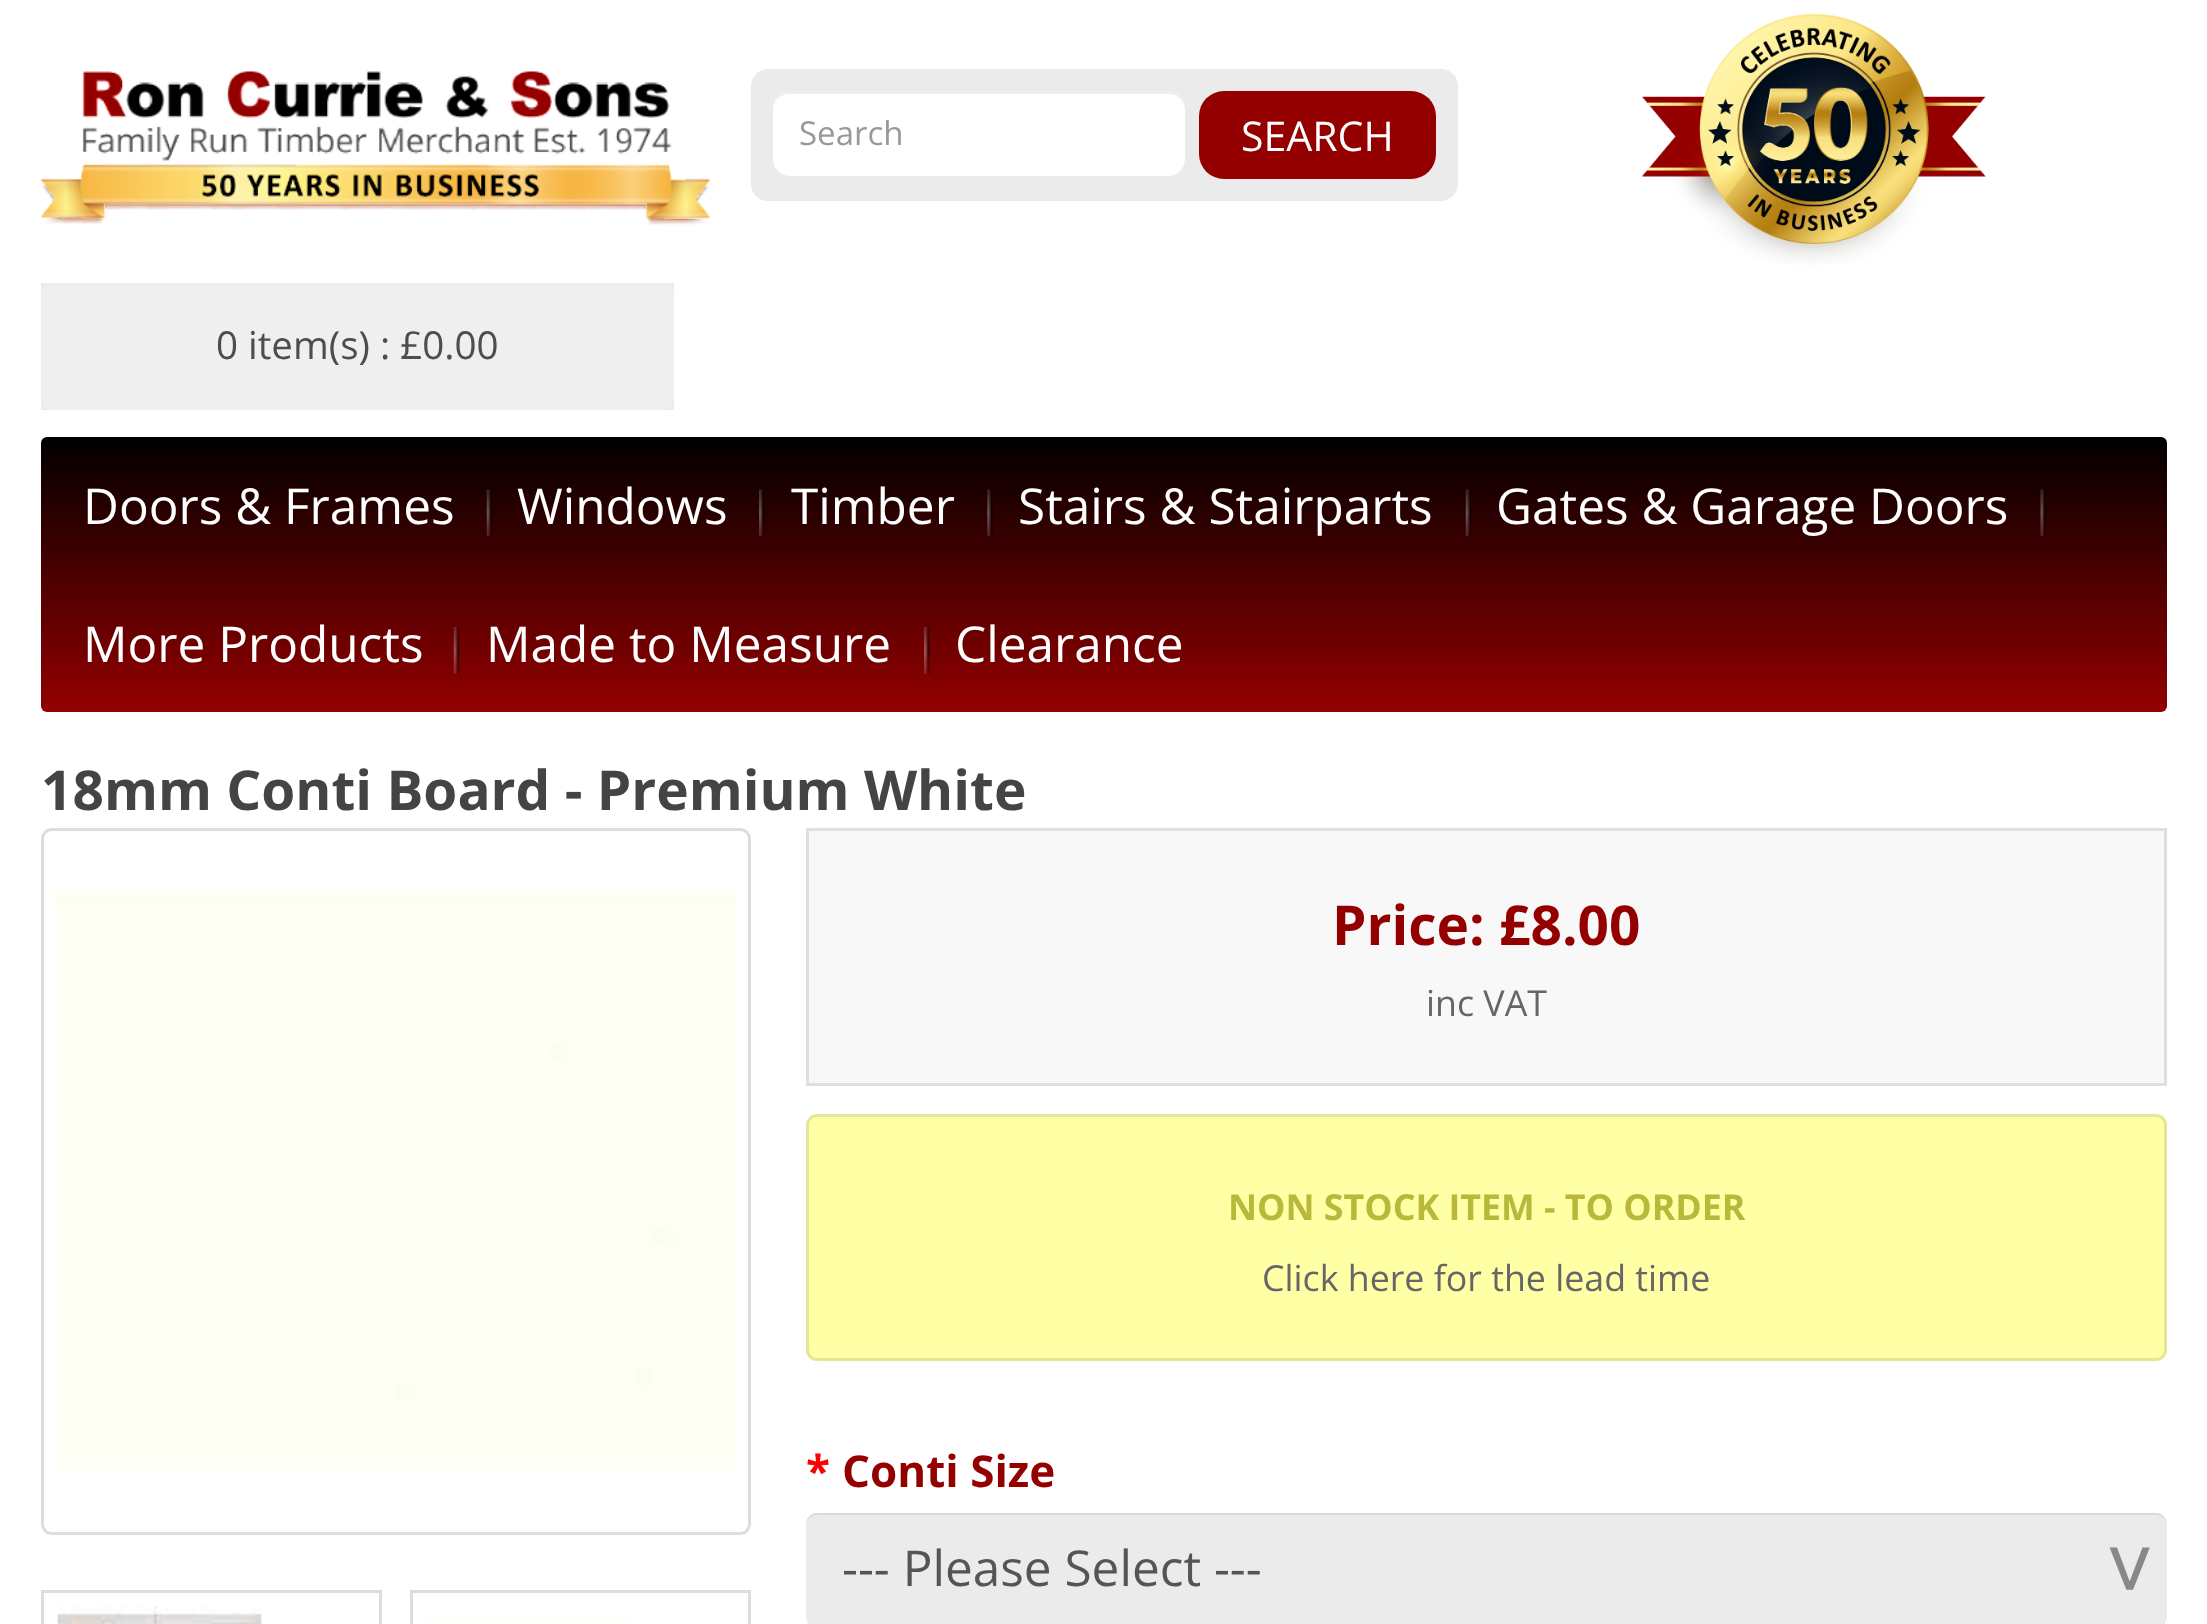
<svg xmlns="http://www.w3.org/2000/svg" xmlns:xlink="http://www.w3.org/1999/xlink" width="2207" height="1624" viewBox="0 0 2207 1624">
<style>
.cls-1{font:33px 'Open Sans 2';fill:#999999}
.cls-2{font:41px Open Sans;fill:#ffffff}
.cls-3{font:38.5px Open Sans;fill:#4d4d4d}
.cls-4{font:49.5px 'Open Sans 2';fill:#ffffff}
.cls-5{font:bold 55px Open Sans;fill:#444444}
.cls-6{font:bold 55px Open Sans;fill:#940000}
.cls-7{font:35.75px 'Open Sans 2';fill:#666666}
.cls-8{font:bold 35.75px Open Sans;fill:#b8b83a}
.cls-9{font:bold 44px Open Sans;fill:#ff0000}
.cls-10{font:bold 44px Open Sans;fill:#940000}
.cls-11{font:49.5px 'Open Sans 2';fill:#555555}
.cls-12{font:82px DejaVu Sans Mono;fill:#888888}
</style>
<defs>
<linearGradient id="g1" gradientUnits="userSpaceOnUse" x1="1104" y1="437" x2="1104" y2="712"><stop offset="0" stop-color="#000000"/><stop offset="1" stop-color="#940000"/></linearGradient>
</defs>
<rect width="100%" height="100%" fill="#ffffff"/>
<image xlink:href="image0.png" x="41" y="71" width="669" height="154"/>
<rect fill="#ebebeb" x="751" y="69" width="707" height="132" rx="17"/>
<rect fill="#ffffff" x="773" y="91" width="412" height="85" rx="17"/>
<path fill="#000000" fill-opacity="0.07" d="M789 94H1169C1178 94 1185 101 1185 110V108C1185 99 1177 91 1168 91H790C781 91 773 99 773 108V110C773 101 780 94 789 94Z"/>
<rect fill="#940000" x="1199" y="91" width="237" height="88" rx="25"/>
<image xlink:href="image1.png" x="1641" y="13" width="345" height="252"/>
<rect fill="#ebebee" x="41" y="283" width="633" height="127"/>
<rect fill="#efefef" x="41" y="283" width="633" height="127" rx="11"/>
<rect fill="url(#g1)" x="41" y="437" width="2126" height="275" rx="6"/>
<image xlink:href="image2.png" x="486" y="489" width="7" height="48"/>
<image xlink:href="image3.png" x="759" y="489" width="6" height="48"/>
<image xlink:href="image4.png" x="987" y="489" width="6" height="48"/>
<image xlink:href="image5.png" x="1465" y="489" width="7" height="48"/>
<image xlink:href="image6.png" x="2040" y="489" width="6" height="48"/>
<image xlink:href="image7.png" x="453" y="627" width="7" height="47"/>
<image xlink:href="image8.png" x="924" y="627" width="6" height="47"/>
<rect fill="none" stroke="#dddddd" stroke-width="3" x="42.5" y="829.5" width="707" height="704" rx="9.5"/>
<image xlink:href="image9.png" x="55" y="887" width="682" height="584"/>
<rect fill="none" stroke="#dddddd" stroke-width="3" x="42.5" y="1591.5" width="338" height="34"/>
<image xlink:href="image10.png" x="57" y="1606" width="205" height="18"/>
<rect fill="none" stroke="#dddddd" stroke-width="3" x="411.5" y="1591.5" width="338" height="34"/>
<rect fill="#fefffa" x="426" y="1618" width="204" height="6"/>
<rect fill="#f8f8f8" stroke="#dfdfdf" stroke-width="3" x="807.5" y="829.5" width="1358" height="255"/>
<rect fill="#ffffa6" x="806" y="1114" width="1361" height="247" rx="11"/>
<rect fill="none" stroke="#000000" stroke-opacity="0.1" stroke-width="3" x="807.5" y="1115.5" width="1358" height="244" rx="9.5"/>
<rect fill="#ebebeb" x="806" y="1513" width="1361" height="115" rx="11"/>
<path fill="#000000" fill-opacity="0.07" d="M817 1515H2156C2162 1515 2167 1520 2167 1526C2167 1519 2163 1513 2156 1513H817C810 1513 806 1519 806 1526C806 1520 811 1515 817 1515Z"/>
<text class="cls-1" x="799" y="145">Search</text>
<text class="cls-2" x="1241" y="151">SEARCH</text>
<text class="cls-3" x="216" y="359">0 item(s) : £0.00</text>
<text class="cls-4" x="83" y="524">Doors &amp; Frames</text>
<text class="cls-4" x="517" y="524">Windows</text>
<text class="cls-4" x="791" y="524">Timber</text>
<text class="cls-4" x="1018" y="524">Stairs &amp; Stairparts</text>
<text class="cls-4" x="1496" y="524">Gates &amp; Garage Doors</text>
<text class="cls-4" x="83" y="662">More Products</text>
<text class="cls-4" x="486" y="662">Made to Measure</text>
<text class="cls-4" x="955" y="662">Clearance</text>
<text class="cls-5" x="41" y="810">18mm Conti Board - Premium White</text>
<text class="cls-6" x="1332" y="945">Price: £8.00</text>
<text class="cls-7" x="1426" y="1016">inc VAT</text>
<text class="cls-8" x="1228" y="1220">NON STOCK ITEM - TO ORDER</text>
<text class="cls-7" x="1262" y="1291">Click here for the lead time</text>
<text class="cls-9" x="806" y="1487">*</text>
<text class="cls-10" x="842" y="1487">Conti Size</text>
<text class="cls-11" x="842" y="1586">--- Please Select ---</text>
<text class="cls-12" x="2104" y="1544" transform="rotate(90 2104 1544)">&gt;</text>
</svg>
